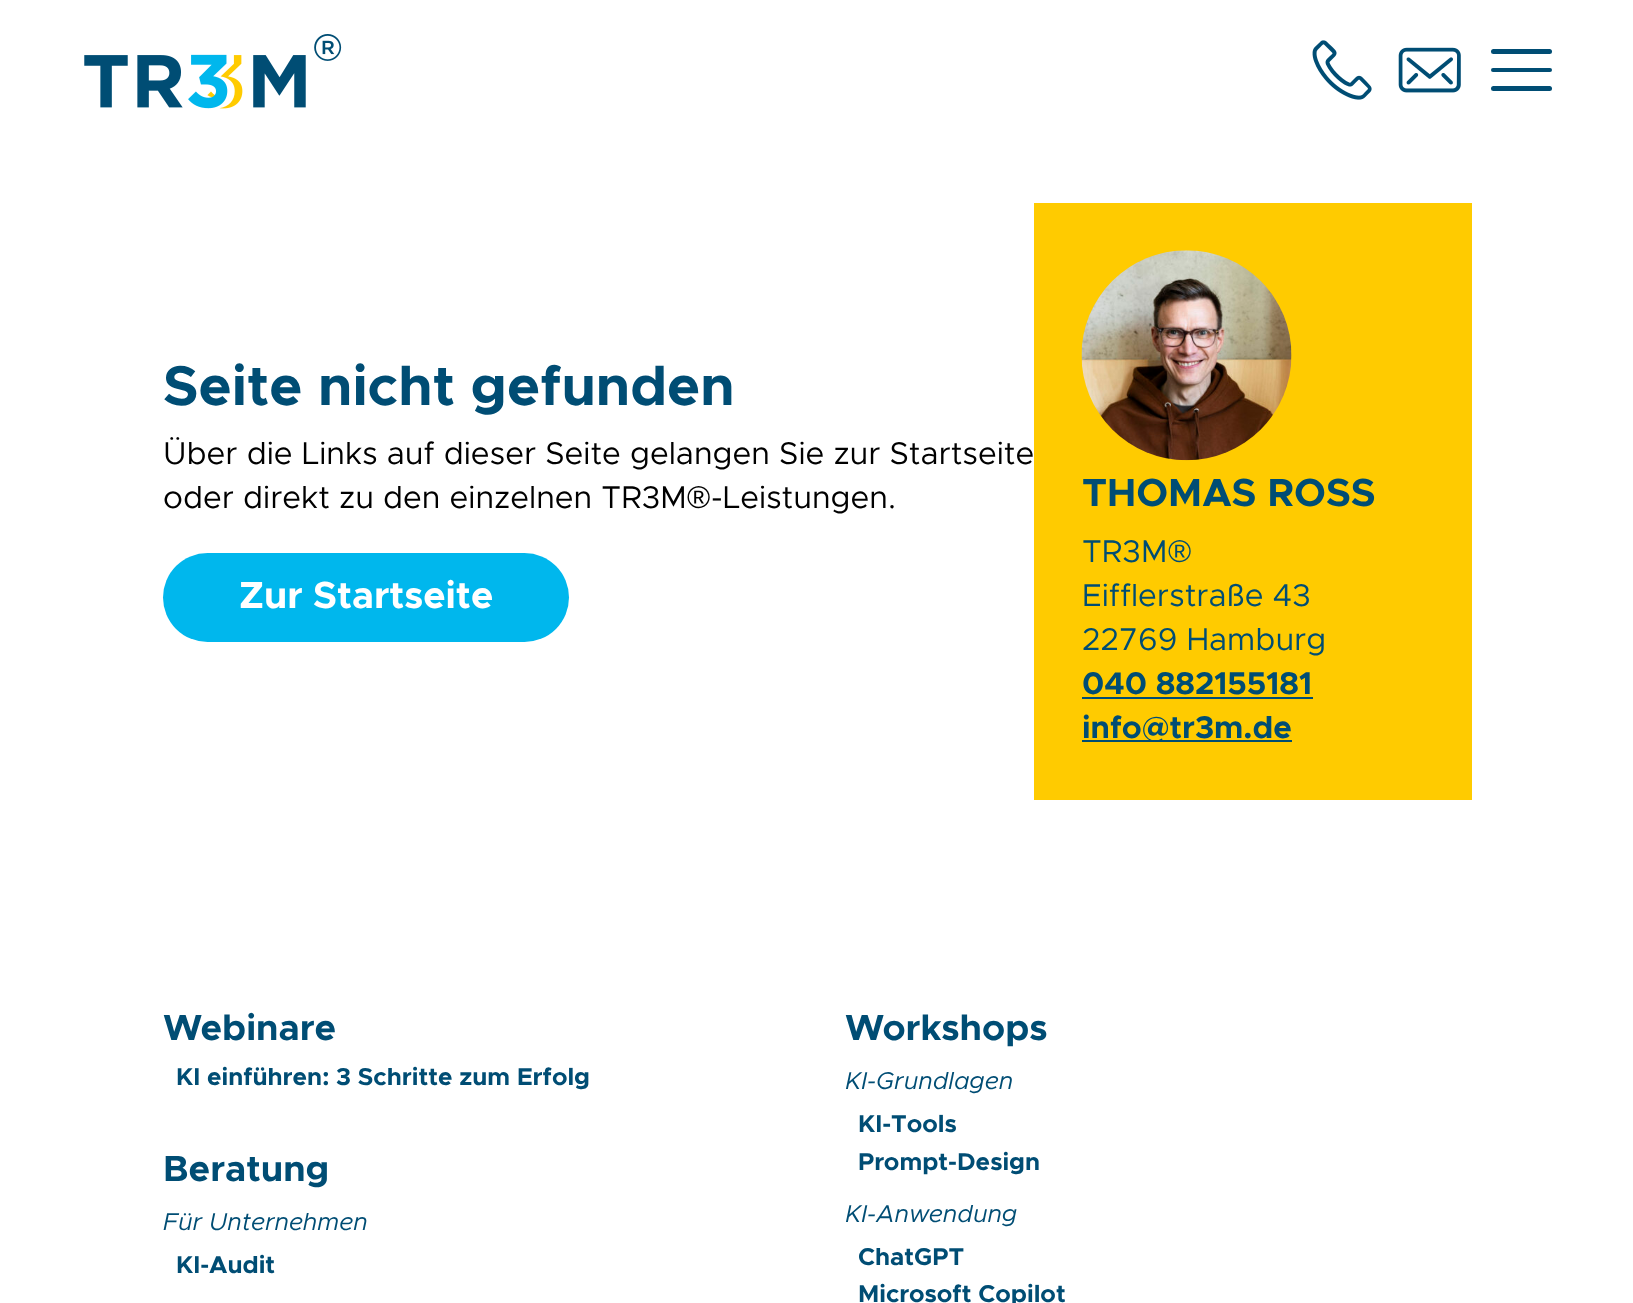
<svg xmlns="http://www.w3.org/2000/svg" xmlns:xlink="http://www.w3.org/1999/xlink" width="1633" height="1303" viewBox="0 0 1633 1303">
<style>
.cls-1{font:bold 56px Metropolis;fill:#004d74}
.cls-2{font:31.5px Metropolis;fill:#000000}
.cls-3{font:31.5px Liberation Sans;fill:#000000}
.cls-4{font:bold 37.75px Metropolis;fill:#ffffff}
.cls-5{font:bold 39.25px Metropolis;fill:#004d74}
.cls-6{font:31.5px Metropolis;fill:#004d74}
.cls-7{font:31.5px Liberation Sans;fill:#004d74}
.cls-8{font:bold 31.5px Metropolis;fill:#004d74}
.cls-9{font:bold 36.5px Metropolis;fill:#004d74}
.cls-10{font:bold 24.5px Metropolis;fill:#004d74}
.cls-11{font:italic 24.5px Metropolis;fill:#004d74}
</style>
<rect width="100%" height="100%" fill="#ffffff"/>
<image xlink:href="image0.png" x="84" y="34" width="258" height="75"/>
<image xlink:href="image1.png" x="1312" y="40" width="60" height="60"/>
<image xlink:href="image2.png" x="1398" y="47" width="63" height="46"/>
<rect fill="#004d74" x="1491" y="49" width="61" height="5" rx="2.5"/>
<rect fill="#004d74" x="1491" y="68" width="61" height="4" rx="2"/>
<rect fill="#004d74" x="1491" y="86" width="61" height="5" rx="2.5"/>
<rect fill="#00b7ed" x="163" y="553" width="406" height="89" rx="44.5"/>
<rect fill="#ffcb00" x="1034" y="203" width="438" height="597"/>
<image xlink:href="image3.png" x="1081" y="250" width="211" height="211"/>
<rect fill="#004d74" x="1082" y="697" width="231" height="2"/>
<rect fill="#004d74" x="1082" y="740" width="210" height="2"/>
<text class="cls-1" x="163" y="405">Seite nicht gefunden</text>
<text class="cls-2"><tspan x="163" y="464">Über die Links auf dieser Seite gelangen Sie zur Startseite</tspan><tspan x="163" y="508">oder direkt zu den einzelnen TR3M</tspan></text>
<text class="cls-3" x="687" y="508">®</text>
<text class="cls-2" x="711" y="508">-Leistungen.</text>
<text class="cls-4" x="239" y="608">Zur Startseite</text>
<text class="cls-5" x="1082" y="506">THOMAS ROSS</text>
<text class="cls-6" x="1082" y="562">TR3M</text>
<text class="cls-7" x="1168" y="562">®</text>
<text class="cls-6"><tspan x="1082" y="606">Eifflerstraße 43</tspan><tspan x="1082" y="650">22769 Hamburg</tspan></text>
<text class="cls-8"><tspan x="1082" y="694">040 882155181</tspan><tspan x="1082" y="738">info@tr3m.de</tspan></text>
<text class="cls-9" x="163" y="1040">Webinare</text>
<text class="cls-10" x="176" y="1085">KI einführen: 3 Schritte zum Erfolg</text>
<text class="cls-9" x="163" y="1181">Beratung</text>
<text class="cls-11" x="163" y="1230">Für Unternehmen</text>
<text class="cls-10" x="176" y="1273">KI-Audit</text>
<text class="cls-9" x="845" y="1040">Workshops</text>
<text class="cls-11" x="845" y="1089">KI-Grundlagen</text>
<text class="cls-10"><tspan x="858" y="1132">KI-Tools</tspan><tspan x="858" y="1170">Prompt-Design</tspan></text>
<text class="cls-11" x="845" y="1222">KI-Anwendung</text>
<text class="cls-10"><tspan x="858" y="1265">ChatGPT</tspan><tspan x="858" y="1302">Microsoft Copilot</tspan></text>
</svg>
